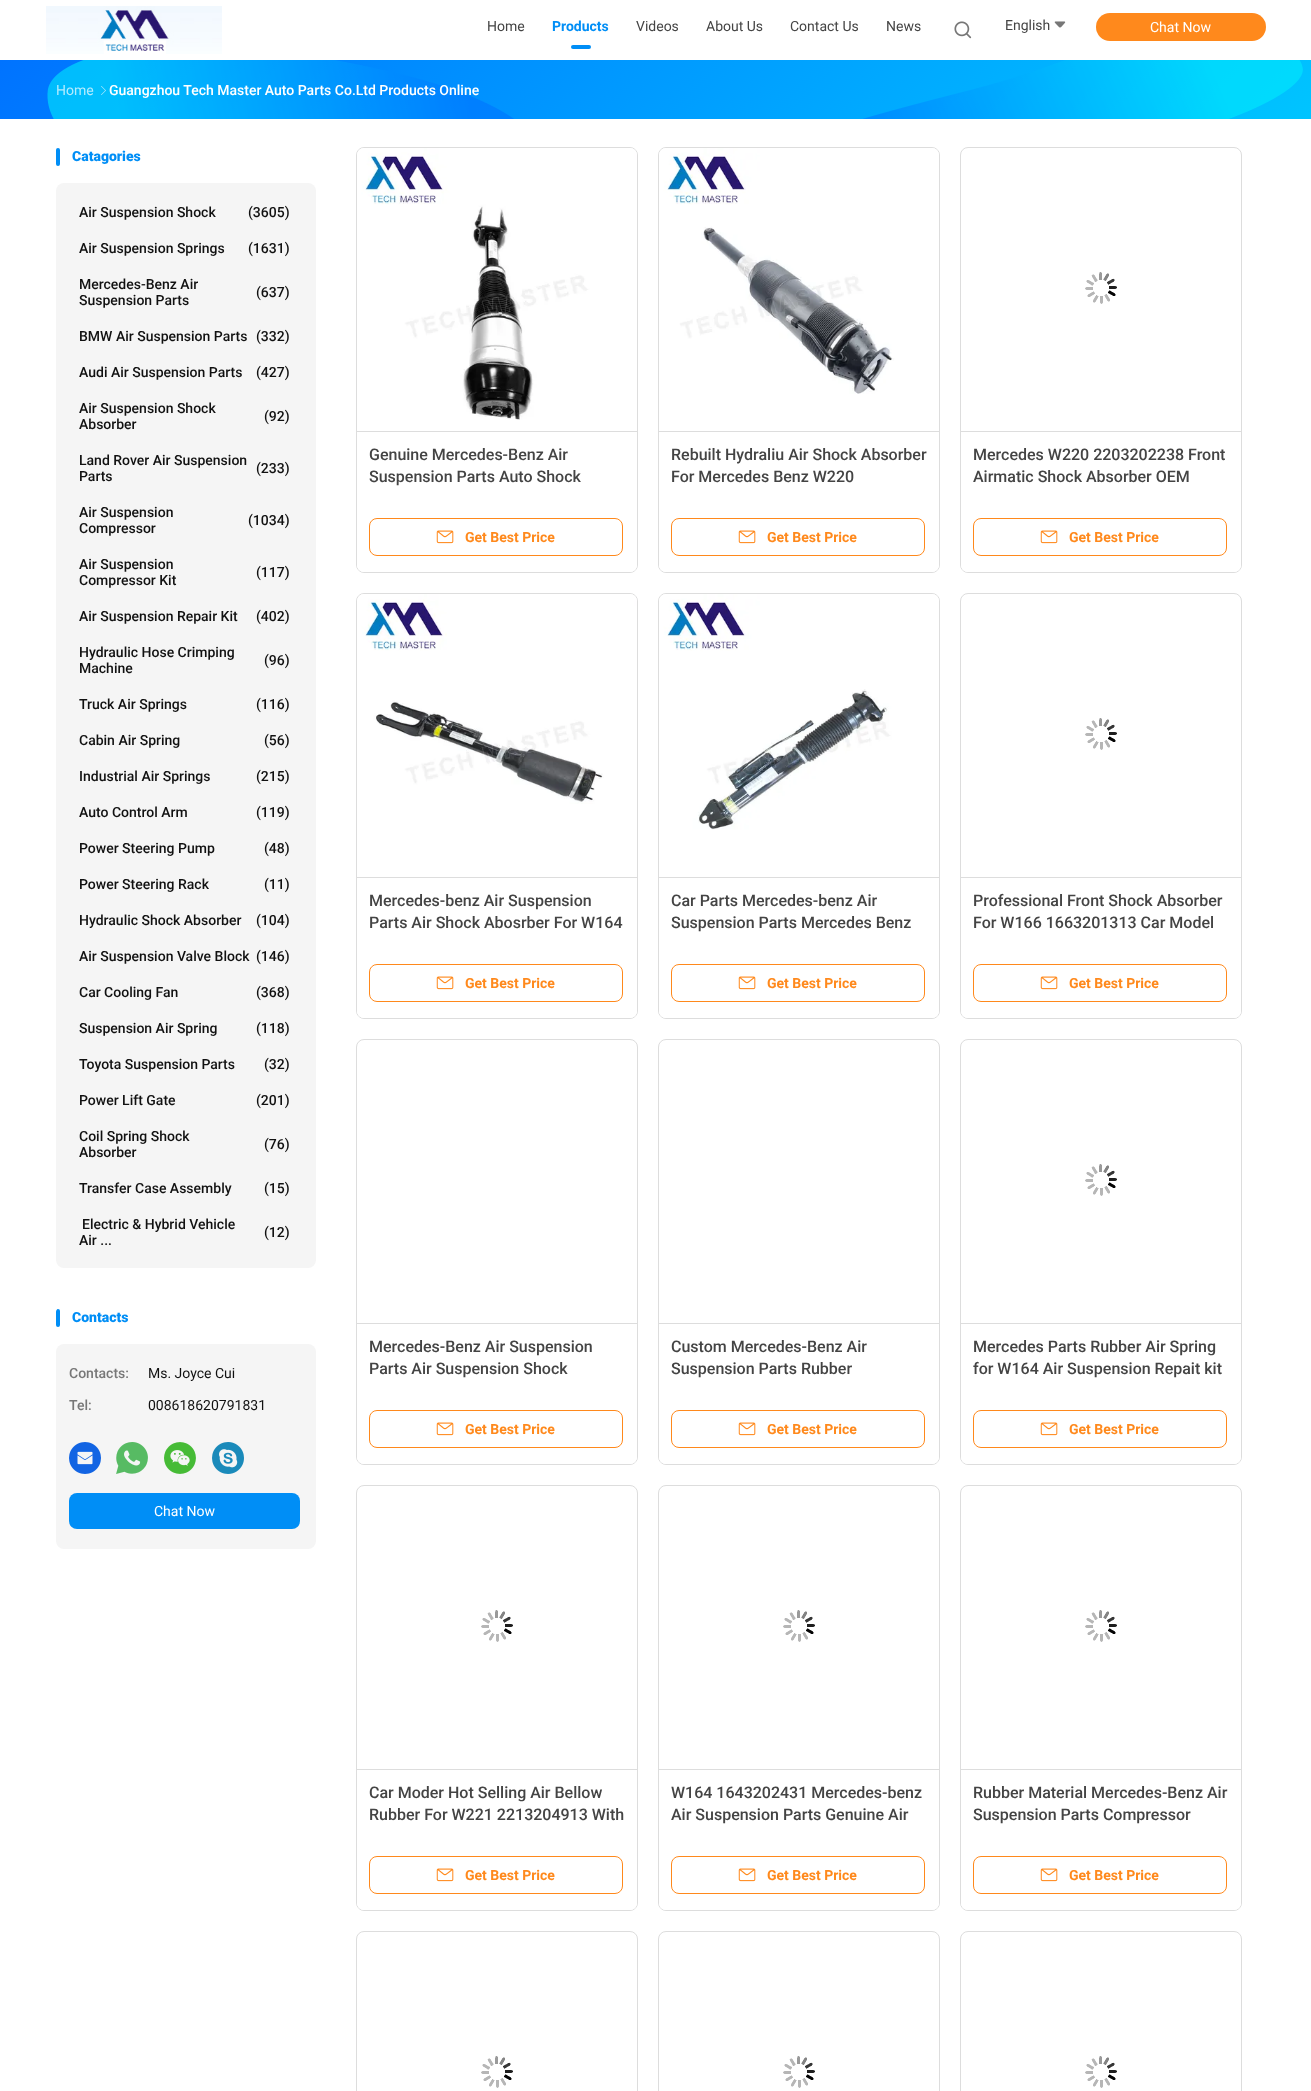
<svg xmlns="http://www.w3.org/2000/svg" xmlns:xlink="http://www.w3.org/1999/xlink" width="1311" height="2091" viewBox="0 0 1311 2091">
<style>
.cls-1{font:14px Roboto;fill:#444444}
.cls-2{font:bold 14px Roboto;fill:#008ef6}
.cls-3{font:14px Roboto;fill:#ffffff}
.cls-4{font:14px Roboto;fill:#b3ebfe}
.cls-5{font:500 14px Roboto;fill:#ffffff}
.cls-6{font:900 14px Roboto;fill:#008ef6}
.cls-7{font:500 14px Roboto;fill:#111111}
.cls-8{font:500 14px Roboto;fill:#777777}
.cls-9{font:14px Roboto;fill:#111111}
.cls-10{font:500 16px Roboto;fill:#444444}
.cls-11{font:bold 14px Roboto;fill:#ff891c}
</style>
<defs>
<linearGradient id="g1" gradientUnits="userSpaceOnUse" x1="313" y1="-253" x2="998" y2="432"><stop offset="0" stop-color="#0073ff"/><stop offset="1" stop-color="#00c4ff"/></linearGradient>
<clipPath id="clip1"><rect x="56" y="1308" width="260" height="241" rx="4"/></clipPath>
</defs>
<rect width="100%" height="100%" fill="#ffffff"/>
<image xlink:href="image0.png" x="46" y="6" width="176" height="48"/>
<rect fill="#008ef6" x="571" y="45" width="20" height="4" rx="2"/>
<image xlink:href="image1.png" x="954" y="21" width="18" height="18"/>
<image xlink:href="image2.png" x="1054" y="21" width="12" height="7"/>
<rect fill="#ff891c" x="1096" y="13" width="170" height="28" rx="14"/>
<rect fill="url(#g1)" x="0" y="60" width="1311" height="59"/>
<image xlink:href="image3.png" x="47" y="60" width="467" height="59"/>
<image xlink:href="image4.png" x="863" y="60" width="440" height="59"/>
<image xlink:href="image5.png" x="101" y="86" width="5" height="9"/>
<rect fill="#008ef6" x="56" y="148" width="4" height="18" rx="2"/>
<rect fill="#f5f5f5" x="56" y="183" width="260" height="1085" rx="8"/>
<g clip-path="url(#clip1)">
<rect fill="#008ef6" x="56" y="1309" width="4" height="18" rx="2"/>
</g>
<rect fill="#f5f5f5" x="56" y="1344" width="260" height="205" rx="8"/>
<image xlink:href="image6.png" x="69" y="1442" width="32" height="32"/>
<image xlink:href="image7.png" x="116" y="1442" width="32" height="32"/>
<image xlink:href="image8.png" x="164" y="1442" width="32" height="32"/>
<image xlink:href="image9.png" x="212" y="1442" width="32" height="32"/>
<rect fill="#008ef6" x="69" y="1493" width="231" height="36" rx="8"/>
<rect fill="none" stroke="#dddddd" x="356.5" y="147.5" width="281" height="425" rx="7.5"/>
<image xlink:href="image10.png" x="357" y="148" width="280" height="272"/>
<path fill="#ffffff" d="M357 431H637V565C637 569 634 572 630 572H364C360 572 357 569 357 565Z"/>
<rect fill="#dddddd" x="357" y="431" width="280" height="1"/>
<rect fill="none" stroke="#ff891c" x="369.5" y="518.5" width="253" height="37" rx="7.5"/>
<image xlink:href="image11.png" x="436" y="530" width="18" height="14"/>
<rect fill="none" stroke="#dddddd" x="658.5" y="147.5" width="281" height="425" rx="7.5"/>
<image xlink:href="image12.png" x="659" y="148" width="280" height="246"/>
<path fill="#ffffff" d="M659 431H939V565C939 569 936 572 932 572H666C662 572 659 569 659 565Z"/>
<rect fill="#dddddd" x="659" y="431" width="280" height="1"/>
<rect fill="none" stroke="#ff891c" x="671.5" y="518.5" width="253" height="37" rx="7.5"/>
<image xlink:href="image11.png" x="738" y="530" width="18" height="14"/>
<rect fill="none" stroke="#dddddd" x="960.5" y="147.5" width="281" height="425" rx="7.5"/>
<image xlink:href="image13.png" x="1085" y="272" width="32" height="32"/>
<path fill="#ffffff" d="M961 431H1241V565C1241 569 1238 572 1234 572H968C964 572 961 569 961 565Z"/>
<rect fill="#dddddd" x="961" y="431" width="280" height="1"/>
<rect fill="none" stroke="#ff891c" x="973.5" y="518.5" width="253" height="37" rx="7.5"/>
<image xlink:href="image11.png" x="1040" y="530" width="18" height="14"/>
<rect fill="none" stroke="#dddddd" x="356.5" y="593.5" width="281" height="425" rx="7.5"/>
<image xlink:href="image14.png" x="357" y="594" width="280" height="210"/>
<path fill="#ffffff" d="M357 877H637V1011C637 1015 634 1018 630 1018H364C360 1018 357 1015 357 1011Z"/>
<rect fill="#dddddd" x="357" y="877" width="280" height="1"/>
<rect fill="none" stroke="#ff891c" x="369.5" y="964.5" width="253" height="37" rx="7.5"/>
<image xlink:href="image11.png" x="436" y="976" width="18" height="14"/>
<rect fill="none" stroke="#dddddd" x="658.5" y="593.5" width="281" height="425" rx="7.5"/>
<image xlink:href="image15.png" x="659" y="594" width="280" height="236"/>
<path fill="#ffffff" d="M659 877H939V1011C939 1015 936 1018 932 1018H666C662 1018 659 1015 659 1011Z"/>
<rect fill="#dddddd" x="659" y="877" width="280" height="1"/>
<rect fill="none" stroke="#ff891c" x="671.5" y="964.5" width="253" height="37" rx="7.5"/>
<image xlink:href="image11.png" x="738" y="976" width="18" height="14"/>
<rect fill="none" stroke="#dddddd" x="960.5" y="593.5" width="281" height="425" rx="7.5"/>
<image xlink:href="image13.png" x="1085" y="718" width="32" height="32"/>
<path fill="#ffffff" d="M961 877H1241V1011C1241 1015 1238 1018 1234 1018H968C964 1018 961 1015 961 1011Z"/>
<rect fill="#dddddd" x="961" y="877" width="280" height="1"/>
<rect fill="none" stroke="#ff891c" x="973.5" y="964.5" width="253" height="37" rx="7.5"/>
<image xlink:href="image11.png" x="1040" y="976" width="18" height="14"/>
<rect fill="none" stroke="#dddddd" x="356.5" y="1039.5" width="281" height="425" rx="7.5"/>
<path fill="#ffffff" d="M357 1323H637V1457C637 1461 634 1464 630 1464H364C360 1464 357 1461 357 1457Z"/>
<rect fill="#dddddd" x="357" y="1323" width="280" height="1"/>
<rect fill="none" stroke="#ff891c" x="369.5" y="1410.5" width="253" height="37" rx="7.5"/>
<image xlink:href="image11.png" x="436" y="1422" width="18" height="14"/>
<rect fill="none" stroke="#dddddd" x="658.5" y="1039.5" width="281" height="425" rx="7.5"/>
<path fill="#ffffff" d="M659 1323H939V1457C939 1461 936 1464 932 1464H666C662 1464 659 1461 659 1457Z"/>
<rect fill="#dddddd" x="659" y="1323" width="280" height="1"/>
<rect fill="none" stroke="#ff891c" x="671.5" y="1410.5" width="253" height="37" rx="7.5"/>
<image xlink:href="image11.png" x="738" y="1422" width="18" height="14"/>
<rect fill="none" stroke="#dddddd" x="960.5" y="1039.5" width="281" height="425" rx="7.5"/>
<image xlink:href="image13.png" x="1085" y="1164" width="32" height="32"/>
<path fill="#ffffff" d="M961 1323H1241V1457C1241 1461 1238 1464 1234 1464H968C964 1464 961 1461 961 1457Z"/>
<rect fill="#dddddd" x="961" y="1323" width="280" height="1"/>
<rect fill="none" stroke="#ff891c" x="973.5" y="1410.5" width="253" height="37" rx="7.5"/>
<image xlink:href="image11.png" x="1040" y="1422" width="18" height="14"/>
<rect fill="none" stroke="#dddddd" x="356.5" y="1485.5" width="281" height="425" rx="7.5"/>
<image xlink:href="image13.png" x="481" y="1610" width="32" height="32"/>
<path fill="#ffffff" d="M357 1769H637V1903C637 1907 634 1910 630 1910H364C360 1910 357 1907 357 1903Z"/>
<rect fill="#dddddd" x="357" y="1769" width="280" height="1"/>
<rect fill="none" stroke="#ff891c" x="369.5" y="1856.5" width="253" height="37" rx="7.5"/>
<image xlink:href="image11.png" x="436" y="1868" width="18" height="14"/>
<rect fill="none" stroke="#dddddd" x="658.5" y="1485.5" width="281" height="425" rx="7.5"/>
<image xlink:href="image13.png" x="783" y="1610" width="32" height="32"/>
<path fill="#ffffff" d="M659 1769H939V1903C939 1907 936 1910 932 1910H666C662 1910 659 1907 659 1903Z"/>
<rect fill="#dddddd" x="659" y="1769" width="280" height="1"/>
<rect fill="none" stroke="#ff891c" x="671.5" y="1856.5" width="253" height="37" rx="7.5"/>
<image xlink:href="image11.png" x="738" y="1868" width="18" height="14"/>
<rect fill="none" stroke="#dddddd" x="960.5" y="1485.5" width="281" height="425" rx="7.5"/>
<image xlink:href="image13.png" x="1085" y="1610" width="32" height="32"/>
<path fill="#ffffff" d="M961 1769H1241V1903C1241 1907 1238 1910 1234 1910H968C964 1910 961 1907 961 1903Z"/>
<rect fill="#dddddd" x="961" y="1769" width="280" height="1"/>
<rect fill="none" stroke="#ff891c" x="973.5" y="1856.5" width="253" height="37" rx="7.5"/>
<image xlink:href="image11.png" x="1040" y="1868" width="18" height="14"/>
<rect fill="none" stroke="#dddddd" x="356.5" y="1931.5" width="281" height="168" rx="7.5"/>
<image xlink:href="image13.png" x="481" y="2056" width="32" height="32"/>
<rect fill="none" stroke="#dddddd" x="658.5" y="1931.5" width="281" height="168" rx="7.5"/>
<image xlink:href="image13.png" x="783" y="2056" width="32" height="32"/>
<rect fill="none" stroke="#dddddd" x="960.5" y="1931.5" width="281" height="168" rx="7.5"/>
<image xlink:href="image13.png" x="1085" y="2056" width="32" height="32"/>
<text class="cls-1" x="487" y="31">Home</text>
<text class="cls-2" x="552" y="31">Products</text>
<text class="cls-1" x="636" y="31">Videos</text>
<text class="cls-1" x="706" y="31">About Us</text>
<text class="cls-1" x="790" y="31">Contact Us</text>
<text class="cls-1" x="886" y="31">News</text>
<text class="cls-1" x="1005" y="30">English</text>
<text class="cls-3" x="1150" y="32">Chat Now</text>
<text class="cls-4" x="56" y="95">Home</text>
<text class="cls-5" x="109" y="95">Guangzhou Tech Master Auto Parts Co.Ltd Products Online</text>
<text class="cls-6" x="72" y="161">Catagories</text>
<text class="cls-7" x="79" y="217">Air Suspension Shock</text>
<text class="cls-7" x="248" y="217">(3605)</text>
<text class="cls-7" x="79" y="253">Air Suspension Springs</text>
<text class="cls-7" x="248" y="253">(1631)</text>
<text class="cls-7" x="79" y="289">Mercedes-Benz Air</text>
<text class="cls-7" x="256" y="297">(637)</text>
<text class="cls-7" x="79" y="305">Suspension Parts</text>
<text class="cls-7" x="79" y="341">BMW Air Suspension Parts</text>
<text class="cls-7" x="256" y="341">(332)</text>
<text class="cls-7" x="79" y="377">Audi Air Suspension Parts</text>
<text class="cls-7" x="256" y="377">(427)</text>
<text class="cls-7" x="79" y="413">Air Suspension Shock</text>
<text class="cls-7" x="264" y="421">(92)</text>
<text class="cls-7" x="79" y="429">Absorber</text>
<text class="cls-7" x="79" y="465">Land Rover Air Suspension</text>
<text class="cls-7" x="256" y="473">(233)</text>
<text class="cls-7" x="79" y="481">Parts</text>
<text class="cls-7" x="79" y="517">Air Suspension</text>
<text class="cls-7" x="248" y="525">(1034)</text>
<text class="cls-7" x="79" y="533">Compressor</text>
<text class="cls-7" x="79" y="569">Air Suspension</text>
<text class="cls-7" x="256" y="577">(117)</text>
<text class="cls-7" x="79" y="585">Compressor Kit</text>
<text class="cls-7" x="79" y="621">Air Suspension Repair Kit</text>
<text class="cls-7" x="256" y="621">(402)</text>
<text class="cls-7" x="79" y="657">Hydraulic Hose Crimping</text>
<text class="cls-7" x="264" y="665">(96)</text>
<text class="cls-7" x="79" y="673">Machine</text>
<text class="cls-7" x="79" y="709">Truck Air Springs</text>
<text class="cls-7" x="256" y="709">(116)</text>
<text class="cls-7" x="79" y="745">Cabin Air Spring</text>
<text class="cls-7" x="264" y="745">(56)</text>
<text class="cls-7" x="79" y="781">Industrial Air Springs</text>
<text class="cls-7" x="256" y="781">(215)</text>
<text class="cls-7" x="79" y="817">Auto Control Arm</text>
<text class="cls-7" x="256" y="817">(119)</text>
<text class="cls-7" x="79" y="853">Power Steering Pump</text>
<text class="cls-7" x="264" y="853">(48)</text>
<text class="cls-7" x="79" y="889">Power Steering Rack</text>
<text class="cls-7" x="264" y="889">(11)</text>
<text class="cls-7" x="79" y="925">Hydraulic Shock Absorber</text>
<text class="cls-7" x="256" y="925">(104)</text>
<text class="cls-7" x="79" y="961">Air Suspension Valve Block</text>
<text class="cls-7" x="256" y="961">(146)</text>
<text class="cls-7" x="79" y="997">Car Cooling Fan</text>
<text class="cls-7" x="256" y="997">(368)</text>
<text class="cls-7" x="79" y="1033">Suspension Air Spring</text>
<text class="cls-7" x="256" y="1033">(118)</text>
<text class="cls-7" x="79" y="1069">Toyota Suspension Parts</text>
<text class="cls-7" x="264" y="1069">(32)</text>
<text class="cls-7" x="79" y="1105">Power Lift Gate</text>
<text class="cls-7" x="256" y="1105">(201)</text>
<text class="cls-7" x="79" y="1141">Coil Spring Shock</text>
<text class="cls-7" x="264" y="1149">(76)</text>
<text class="cls-7" x="79" y="1157">Absorber</text>
<text class="cls-7" x="79" y="1193">Transfer Case Assembly</text>
<text class="cls-7" x="264" y="1193">(15)</text>
<text class="cls-7" x="82" y="1229">Electric &amp; Hybrid Vehicle</text>
<text class="cls-7" x="264" y="1237">(12)</text>
<text class="cls-7" x="79" y="1245">Air ...</text>
<text class="cls-6" x="72" y="1322">Contacts</text>
<text class="cls-8" x="69" y="1378">Contacts:</text>
<text class="cls-9" x="148" y="1378">Ms. Joyce Cui</text>
<text class="cls-8" x="69" y="1410">Tel:</text>
<text class="cls-9" x="148" y="1410">008618620791831</text>
<text class="cls-3" x="154" y="1516">Chat Now</text>
<text class="cls-10"><tspan x="369" y="460">Genuine Mercedes-Benz Air</tspan><tspan x="369" y="482">Suspension Parts Auto Shock</tspan></text>
<text class="cls-11" x="465" y="542">Get Best Price</text>
<text class="cls-10"><tspan x="671" y="460">Rebuilt Hydraliu Air Shock Absorber</tspan><tspan x="671" y="482">For Mercedes Benz W220</tspan></text>
<text class="cls-11" x="767" y="542">Get Best Price</text>
<text class="cls-10"><tspan x="973" y="460">Mercedes W220 2203202238 Front</tspan><tspan x="973" y="482">Airmatic Shock Absorber OEM</tspan></text>
<text class="cls-11" x="1069" y="542">Get Best Price</text>
<text class="cls-10"><tspan x="369" y="906">Mercedes-benz Air Suspension</tspan><tspan x="369" y="928">Parts Air Shock Abosrber For W164</tspan></text>
<text class="cls-11" x="465" y="988">Get Best Price</text>
<text class="cls-10"><tspan x="671" y="906">Car Parts Mercedes-benz Air</tspan><tspan x="671" y="928">Suspension Parts Mercedes Benz</tspan></text>
<text class="cls-11" x="767" y="988">Get Best Price</text>
<text class="cls-10"><tspan x="973" y="906">Professional Front Shock Absorber</tspan><tspan x="973" y="928">For W166 1663201313 Car Model</tspan></text>
<text class="cls-11" x="1069" y="988">Get Best Price</text>
<text class="cls-10"><tspan x="369" y="1352">Mercedes-Benz Air Suspension</tspan><tspan x="369" y="1374">Parts Air Suspension Shock</tspan></text>
<text class="cls-11" x="465" y="1434">Get Best Price</text>
<text class="cls-10"><tspan x="671" y="1352">Custom Mercedes-Benz Air</tspan><tspan x="671" y="1374">Suspension Parts Rubber</tspan></text>
<text class="cls-11" x="767" y="1434">Get Best Price</text>
<text class="cls-10"><tspan x="973" y="1352">Mercedes Parts Rubber Air Spring</tspan><tspan x="973" y="1374">for W164 Air Suspension Repait kit</tspan></text>
<text class="cls-11" x="1069" y="1434">Get Best Price</text>
<text class="cls-10"><tspan x="369" y="1798">Car Moder Hot Selling Air Bellow</tspan><tspan x="369" y="1820">Rubber For W221 2213204913 With</tspan></text>
<text class="cls-11" x="465" y="1880">Get Best Price</text>
<text class="cls-10"><tspan x="671" y="1798">W164 1643202431 Mercedes-benz</tspan><tspan x="671" y="1820">Air Suspension Parts Genuine Air</tspan></text>
<text class="cls-11" x="767" y="1880">Get Best Price</text>
<text class="cls-10"><tspan x="973" y="1798">Rubber Material Mercedes-Benz Air</tspan><tspan x="973" y="1820">Suspension Parts Compressor</tspan></text>
<text class="cls-11" x="1069" y="1880">Get Best Price</text>
</svg>
